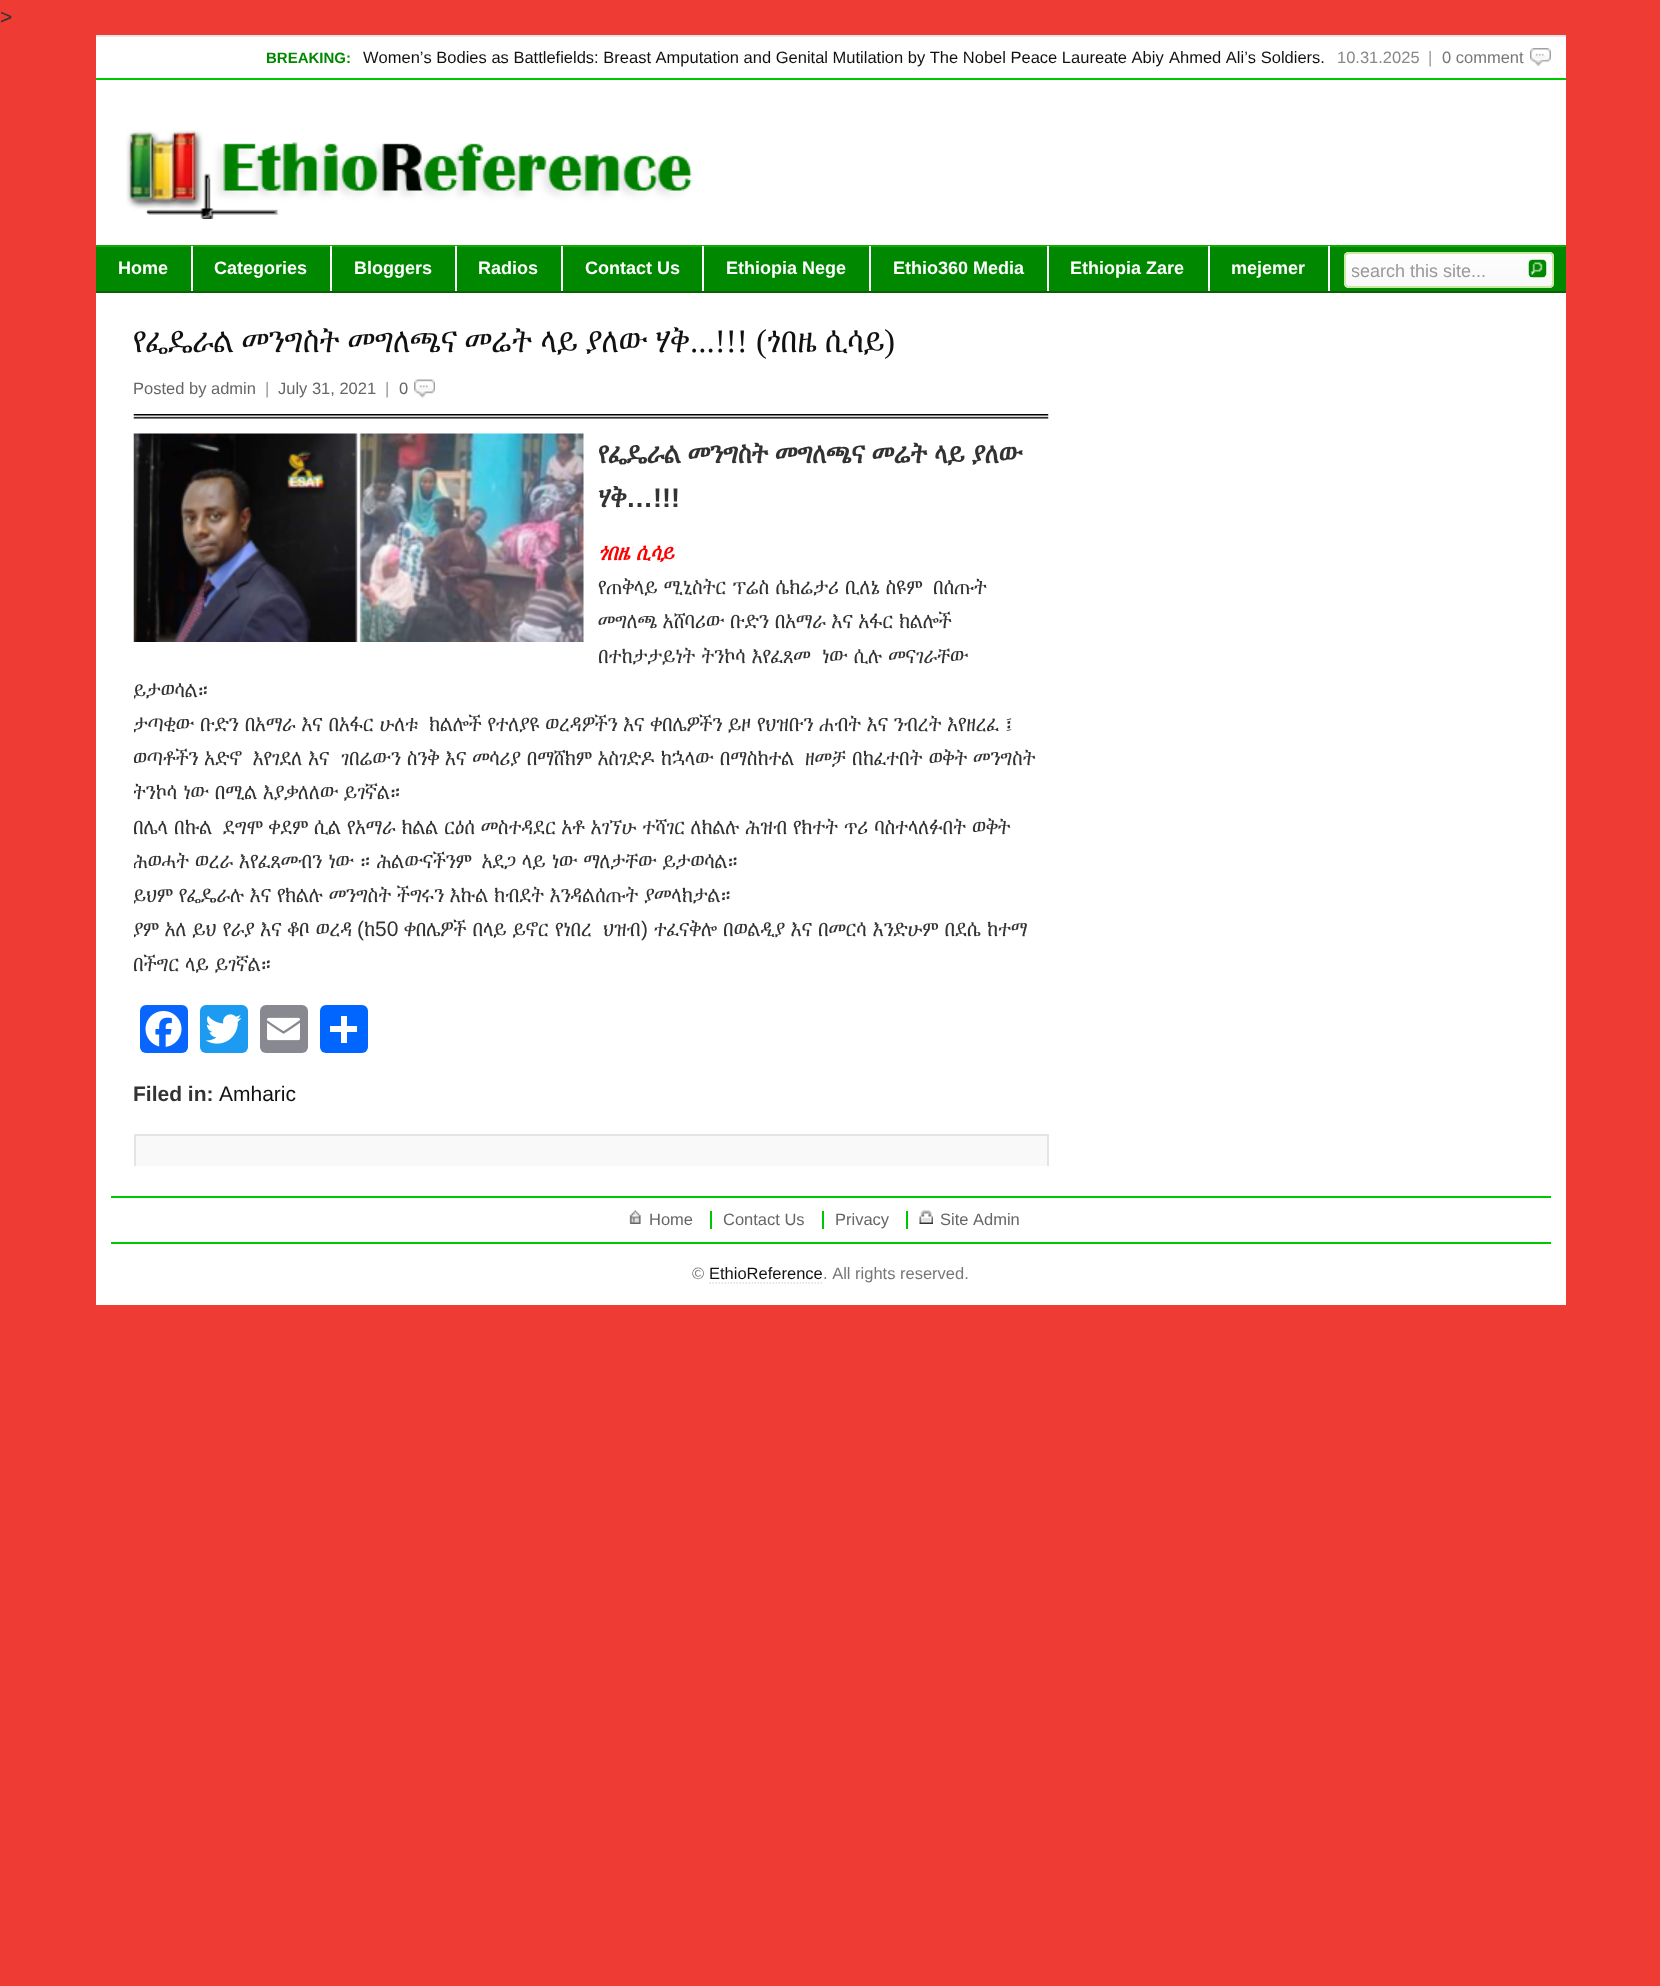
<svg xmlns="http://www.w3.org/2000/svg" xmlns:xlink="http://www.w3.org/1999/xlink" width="1660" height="1986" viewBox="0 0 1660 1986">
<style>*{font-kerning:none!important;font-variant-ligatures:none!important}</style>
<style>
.cls-1{font:21px Liberation Sans;fill:#333333}
.cls-2{font:bold 15px Liberation Sans;fill:#008800}
.cls-3{font:16.5px Liberation Sans;fill:#111111}
.cls-4{font:16.5px Liberation Sans;fill:#888888}
.cls-5{font:16.5px Liberation Sans;fill:#999999}
.cls-6{font:16.5px Liberation Sans;fill:#777777}
.cls-7{font:bold 18px Liberation Sans;fill:#ffffff}
.cls-8{font:18px Liberation Sans;fill:#999999}
.cls-9{font:33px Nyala;fill:#111111}
.cls-10{font:33px Liberation Serif;fill:#111111}
.cls-11{font:16.5px Liberation Sans;fill:#666666}
.cls-12{font:bold 27px Nyala;fill:#333333}
.cls-13{font:bold 27px Liberation Sans;fill:#333333}
.cls-14{font:italic bold 21px Nyala;fill:#ff0000}
.cls-15{font:21px Nyala;fill:#333333}
.cls-16{font:bold 21px Liberation Sans;fill:#333333}
.cls-17{font:21px Liberation Sans;fill:#111111}
</style>
<defs>
<clipPath id="clip1"><rect x="1352" y="261" width="195" height="21"/></clipPath>
<clipPath id="clip2"><rect x="134" y="315" width="915" height="851"/></clipPath>
</defs>
<rect width="100%" height="100%" fill="#ee3b33"/>
<rect fill="#ffffff" x="96" y="37" width="1470" height="1268"/>
<rect fill="#e6e6e6" x="96" y="35" width="1470" height="2"/>
<image xlink:href="image0.png" x="1530" y="48" width="21" height="18"/>
<rect fill="#00c800" x="96" y="78" width="1470" height="2"/>
<image xlink:href="image1.png" x="126" y="130" width="566" height="89"/>
<rect fill="#008800" x="96" y="247" width="1470" height="44"/>
<rect fill="#10ab00" x="96" y="245" width="1470" height="2"/>
<rect fill="#0c5e03" x="96" y="291" width="1470" height="2"/>
<rect fill="#ffffff" x="191" y="246" width="2" height="45"/>
<rect fill="#ffffff" x="330" y="246" width="2" height="45"/>
<rect fill="#ffffff" x="455" y="246" width="2" height="45"/>
<rect fill="#ffffff" x="561" y="246" width="2" height="45"/>
<rect fill="#ffffff" x="702" y="246" width="2" height="45"/>
<rect fill="#ffffff" x="869" y="246" width="2" height="45"/>
<rect fill="#ffffff" x="1047" y="246" width="2" height="45"/>
<rect fill="#ffffff" x="1208" y="246" width="2" height="45"/>
<rect fill="#ffffff" x="1328" y="246" width="2" height="45"/>
<image xlink:href="image2.png" x="1344" y="252" width="210" height="36"/>
<rect fill="none" stroke="#cae9a3" stroke-width="2" x="1345" y="253" width="208" height="34" rx="4"/>
<image xlink:href="image3.png" x="1528" y="259" width="19" height="19"/>
<image xlink:href="image4.png" x="133" y="414" width="916" height="5"/>
<image xlink:href="image5.png" x="414" y="379" width="21" height="19"/>
<image xlink:href="image6.png" x="133" y="433" width="451" height="209"/>
<rect fill="#0866ff" x="140" y="1005" width="48" height="48" rx="6"/>
<image xlink:href="image7.png" x="145" y="1011" width="37" height="36"/>
<rect fill="#1d9bf0" x="200" y="1005" width="48" height="48" rx="6"/>
<image xlink:href="image8.png" x="205" y="1014" width="37" height="30"/>
<rect fill="#888990" x="260" y="1005" width="48" height="48" rx="6"/>
<image xlink:href="image9.png" x="267" y="1017" width="33" height="24"/>
<rect fill="#0166ff" x="320" y="1005" width="48" height="48" rx="6"/>
<rect fill="#ffffff" x="341" y="1016" width="6" height="27"/>
<rect fill="#ffffff" x="330" y="1026" width="27" height="6"/>
<rect fill="#f9f9f9" x="136" y="1136" width="911" height="30"/>
<rect fill="#e4e4e4" x="134" y="1134" width="915" height="2"/>
<rect fill="#e4e4e4" x="1047" y="1134" width="2" height="32"/>
<rect fill="#e4e4e4" x="134" y="1134" width="2" height="32"/>
<rect fill="#00c800" x="111" y="1196" width="1440" height="2"/>
<rect fill="#00c800" x="111" y="1242" width="1440" height="2"/>
<image xlink:href="image10.png" x="629" y="1210" width="12" height="14"/>
<rect fill="#00c800" x="710" y="1211" width="2" height="18"/>
<rect fill="#00c800" x="822" y="1211" width="2" height="18"/>
<image xlink:href="image11.png" x="919" y="1210" width="14" height="14"/>
<rect fill="#00c800" x="906" y="1211" width="2" height="18"/>
<path fill="none" stroke="#dddddd" stroke-width="1.5" stroke-dasharray="1.5 1.5" d="M709.5 1283H822"/>
<text class="cls-1" x="0" y="24">&gt;</text>
<text class="cls-2" x="266" y="63">BREAKING:</text>
<text class="cls-3" x="363" y="63">Women’s Bodies as Battlefields: Breast Amputation and Genital Mutilation by The Nobel Peace Laureate Abiy</text>
<text class="cls-3" x="1169" y="63">Ahmed Ali’s Soldiers.</text>
<text class="cls-4" x="1337" y="63">10.31.2025</text>
<text class="cls-5" x="1428" y="63">|</text>
<text class="cls-6" x="1442" y="63">0 comment</text>
<text class="cls-7" x="118" y="274">Home</text>
<text class="cls-7" x="214" y="274">Categories</text>
<text class="cls-7" x="354" y="274">Bloggers</text>
<text class="cls-7" x="478" y="274">Radios</text>
<text class="cls-7" x="585" y="274">Contact Us</text>
<text class="cls-7" x="726" y="274">Ethiopia Nege</text>
<text class="cls-7" x="893" y="274">Ethio360 Media</text>
<text class="cls-7" x="1070" y="274">Ethiopia Zare</text>
<text class="cls-7" x="1231" y="274">mejemer</text>
<g clip-path="url(#clip1)">
<text class="cls-8" x="1351" y="277">search this site...</text>
</g>
<text class="cls-9" x="133" y="352">የፌዴራል</text>
<text class="cls-9" x="242" y="352">መንግስት</text>
<text class="cls-9" x="348" y="352">መግለጫና</text>
<text class="cls-9" x="465" y="352">መሬት</text>
<text class="cls-9" x="541" y="352">ላይ</text>
<text class="cls-9" x="586" y="352">ያለው</text>
<text class="cls-9" x="655" y="352">ሃቅ</text>
<text class="cls-10" x="690" y="352">...!!! (</text>
<text class="cls-9" x="767" y="352">ጎበዜ</text>
<text class="cls-9" x="825" y="352">ሲሳይ</text>
<text class="cls-10" x="884" y="352">)</text>
<text class="cls-11" x="133" y="394">Posted by admin</text>
<text class="cls-5" x="265" y="394">|</text>
<text class="cls-11" x="278" y="394">July 31, 2021</text>
<text class="cls-5" x="385" y="394">|</text>
<text class="cls-11" x="399" y="394">0</text>
<text class="cls-12"><tspan x="598" y="463" word-spacing="-0.5">የፌዴራል መንግስት መግለጫና መሬት ላይ ያለው</tspan><tspan x="598" y="507">ሃቅ</tspan></text>
<text class="cls-13" x="626" y="507">…!!!</text>
<text class="cls-14" x="598" y="560">ጎበዜ ሲሳይ</text>
<text class="cls-15" x="598" y="594">የጠቅላይ ሚኒስትር ፕሬስ ሴክሬታሪ ቢለኔ ስዩም</text>
<text class="cls-15" x="933" y="594">በሰጡት</text>
<text class="cls-15"><tspan x="598" y="628" word-spacing="-0.25">መግለጫ አሸባሪው ቡድን በአማራ እና አፋር ክልሎች</tspan><tspan x="598" y="663">በተከታታይነት ትንኮሳ እየፈጸመ</tspan></text>
<text class="cls-15" x="822" y="663">ነው ሲሉ መናገራቸው</text>
<g clip-path="url(#clip2)">
<text class="cls-15"><tspan x="133" y="697">ይታወሳል።</tspan><tspan x="133" y="731" word-spacing="-0.25">ታጣቂው ቡድን በአማራ እና በአፋር ሁለቱ</tspan></text>
</g>
<text class="cls-15" x="429" y="731" word-spacing="-0.25">ክልሎች የተለያዩ ወረዳዎችን እና ቀበሌዎችን ይዞ የህዝቡን ሐብት እና ንብረት እየዘረፈ ፤</text>
<g clip-path="url(#clip2)">
<text class="cls-15" x="133" y="765">ወጣቶችን አድኖ</text>
</g>
<text class="cls-15" x="253" y="765">እየገደለ እና</text>
<text class="cls-15" x="341" y="765">ገበሬውን ስንቅ እና መሳሪያ በማሸክም አስገድዶ ከኋላው በማስከተል</text>
<text class="cls-15" x="805" y="765">ዘመቻ በከፈተበት ወቅት መንግስት</text>
<g clip-path="url(#clip2)">
<text class="cls-15"><tspan x="133" y="799" word-spacing="-0.25">ትንኮሳ ነው በሚል እያቃለለው ይገኛል።</tspan><tspan x="133" y="834" word-spacing="-0.25">በሌላ በኩል</tspan></text>
</g>
<text class="cls-15" x="223" y="834" word-spacing="-0.25">ደግሞ ቀደም ሲል የአማራ ክልል ርዕሰ መስተዳደር አቶ አገኘሁ ተሻገር ለክልሉ ሕዝብ የክተት ጥሪ ባስተላለፉበት ወቅት</text>
<g clip-path="url(#clip2)">
<text class="cls-15" x="133" y="868">ሕወሓት ወረራ እየፈጸመብን ነው ። ሕልውናችንም</text>
</g>
<text class="cls-15" x="482" y="868">አደጋ ላይ ነው ማለታቸው ይታወሳል።</text>
<g clip-path="url(#clip2)">
<text class="cls-15"><tspan x="133" y="902" word-spacing="-0.25">ይህም የፌዴራሉ እና የክልሉ መንግስት ችግሩን እኩል ክብደት እንዳልሰጡት ያመላክታል።</tspan><tspan x="133" y="936">ያም አለ ይህ የራያ እና ቆቦ ወረዳ</tspan></text>
</g>
<text class="cls-1" x="357" y="936">(</text>
<text class="cls-15" x="364" y="936">ከ</text>
<text class="cls-1" x="375" y="936">50</text>
<text class="cls-15" x="404" y="936">ቀበሌዎች በላይ ይኖር የነበረ</text>
<text class="cls-15" x="603" y="936">ህዝብ</text>
<text class="cls-1" x="641" y="936">)</text>
<text class="cls-15" x="654" y="936">ተፈናቅሎ በወልዲያ እና በመርሳ እንድሁም በደሴ ከተማ</text>
<g clip-path="url(#clip2)">
<text class="cls-15" x="133" y="971">በችግር ላይ ይገኛል።</text>
</g>
<text class="cls-16" x="133" y="1101">Filed in:</text>
<text class="cls-17" x="219" y="1101">Amharic</text>
<text class="cls-11" x="649" y="1225">Home</text>
<text class="cls-11" x="723" y="1225">Contact Us</text>
<text class="cls-11" x="835" y="1225">Privacy</text>
<text class="cls-11" x="940" y="1225">Site Admin</text>
<text class="cls-6" x="692" y="1279">©</text>
<text class="cls-3" x="709" y="1279">EthioReference</text>
<text class="cls-6" x="823" y="1279">. All rights reserved.</text>
</svg>
